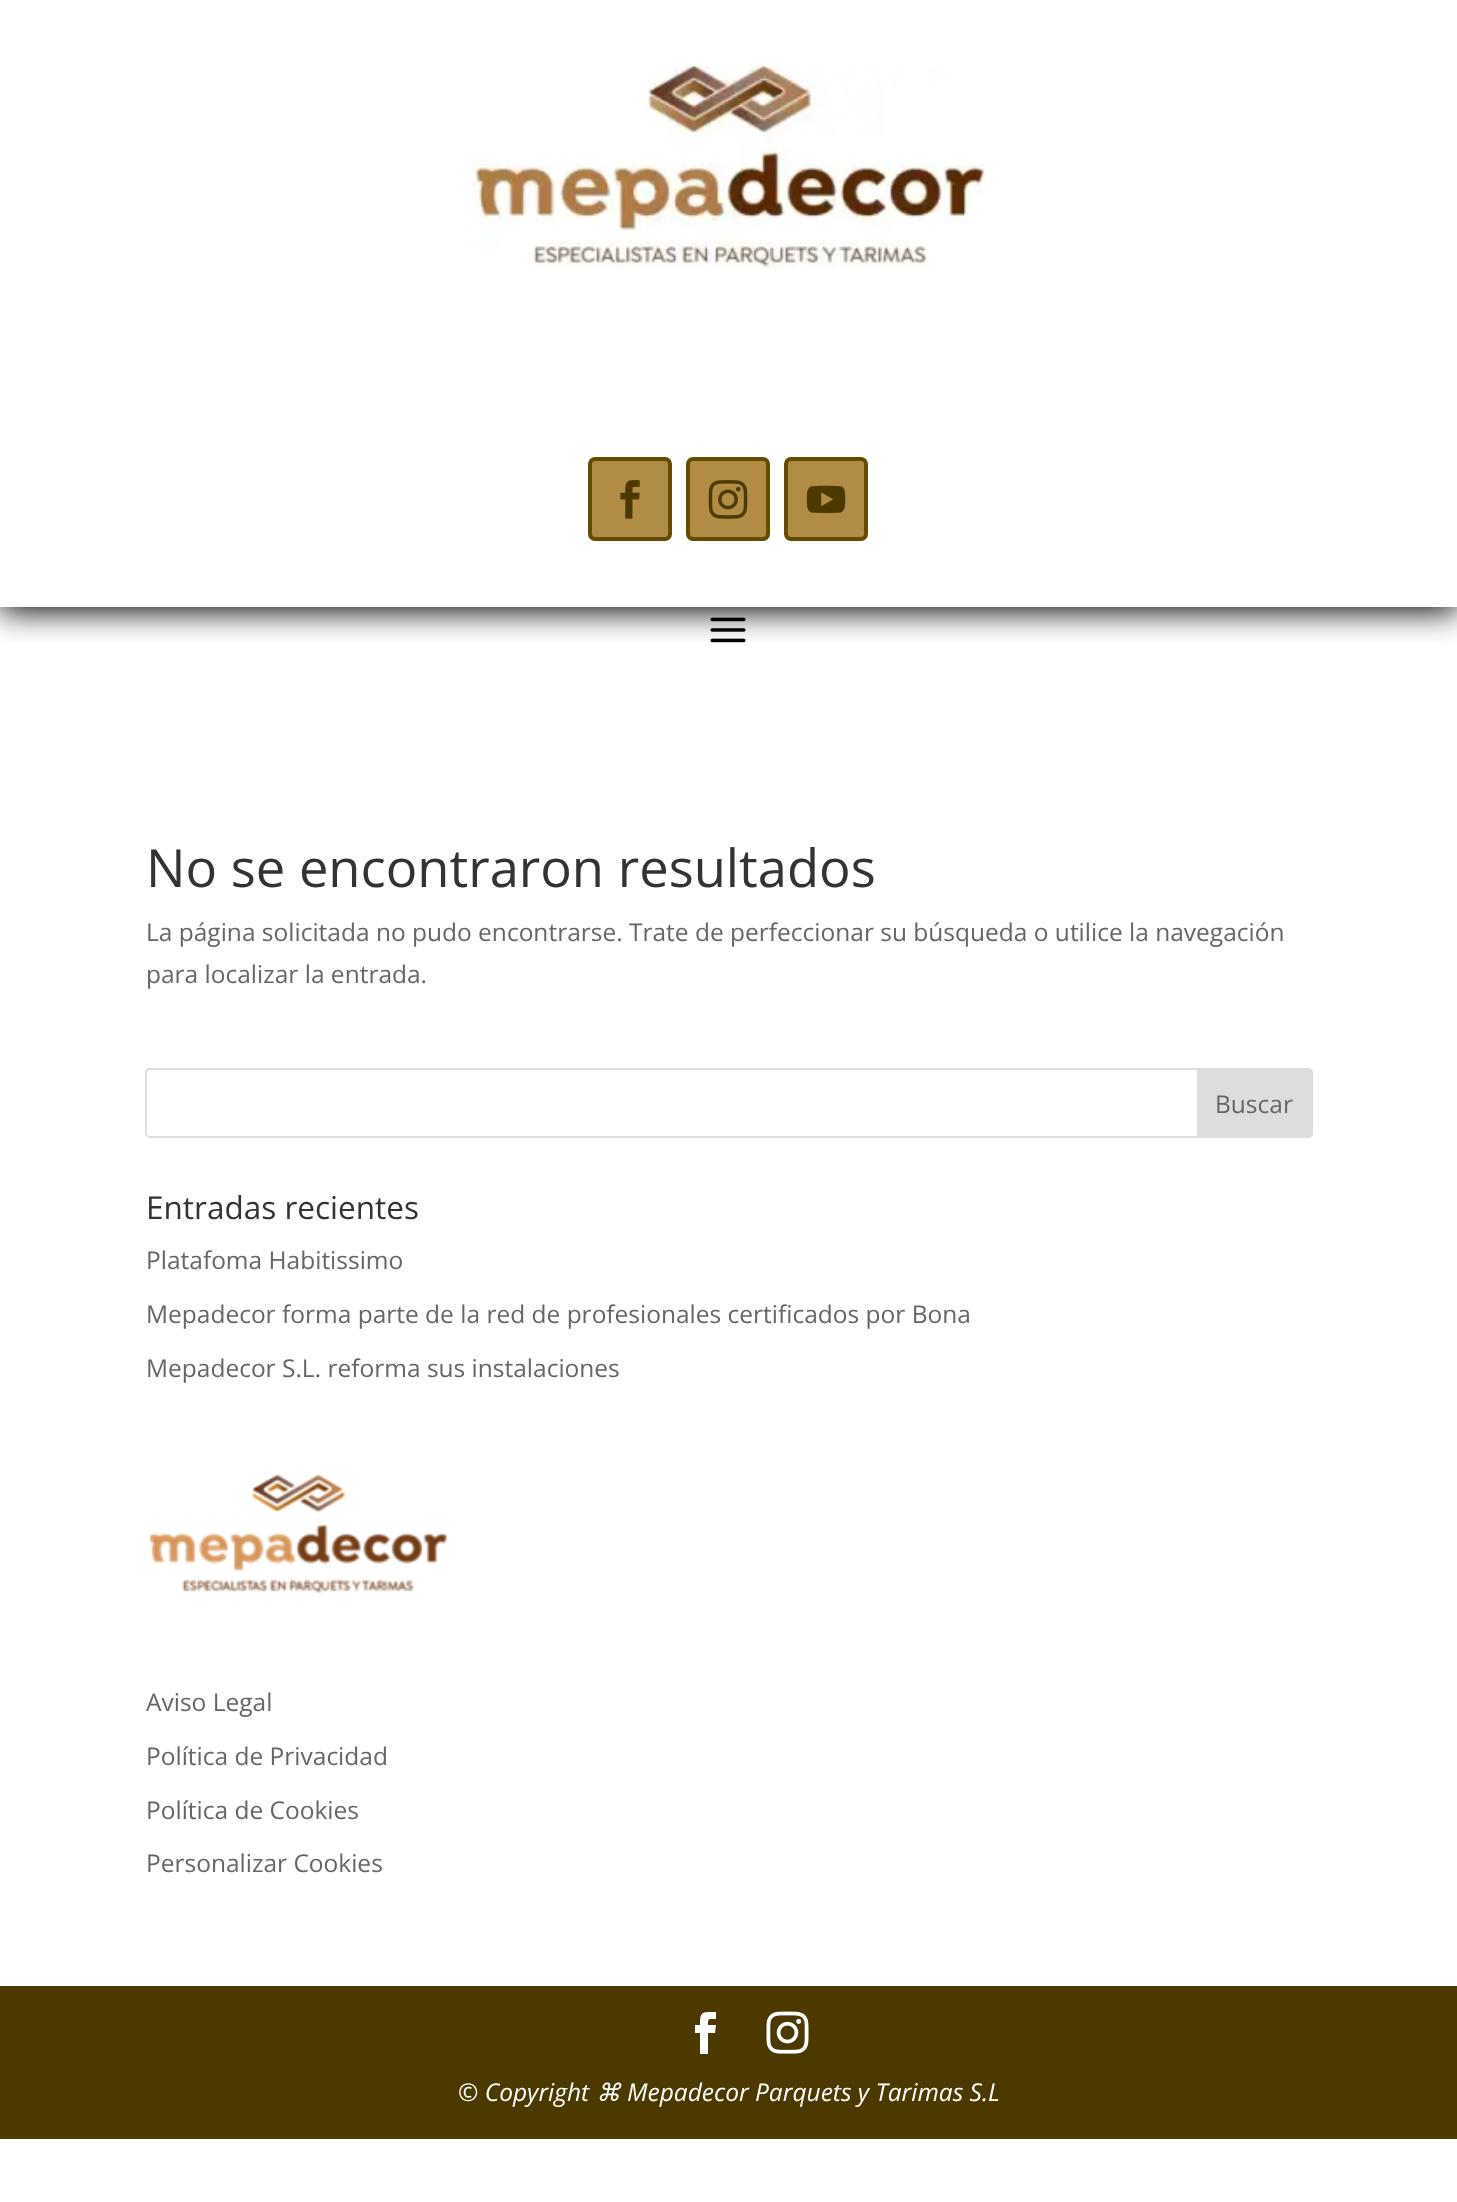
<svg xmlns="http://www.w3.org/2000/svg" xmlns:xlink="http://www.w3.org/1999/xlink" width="1457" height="2202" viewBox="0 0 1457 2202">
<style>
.cls-1{font:52.5px Open Sans;fill:#333333}
.cls-2{font:24.5px Open Sans;fill:#666666}
.cls-3{font:31.5px Open Sans;fill:#333333}
.cls-4{font:italic 24.5px Open Sans;fill:#ffffff}
.cls-5{font:italic 24.5px DejaVu Sans;fill:#ffffff}
</style>
<defs>
<clipPath id="clip1"><rect x="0" y="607" width="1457" height="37"/></clipPath>
</defs>
<rect width="100%" height="100%" fill="#ffffff"/>
<image xlink:href="image4.png" x="710" y="617" width="36" height="26"/>
<g clip-path="url(#clip1)">
<rect fill="#000000" filter="blur(16px)" x="0" y="4" width="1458" height="607"/>
</g>
<image xlink:href="image0.png" x="466" y="64" width="520" height="205"/>
<rect fill="#b08c45" stroke="#664c00" stroke-width="4" x="590" y="459" width="80" height="80" rx="5"/>
<image xlink:href="image1.png" x="620" y="480" width="20" height="39"/>
<rect fill="#b08c45" stroke="#664c00" stroke-width="4" x="688" y="459" width="80" height="80" rx="5"/>
<image xlink:href="image2.png" x="708" y="480" width="40" height="39"/>
<rect fill="#b08c45" stroke="#664c00" stroke-width="4" x="786" y="459" width="80" height="80" rx="5"/>
<image xlink:href="image3.png" x="806" y="485" width="40" height="29"/>
<rect fill="none" stroke="#dddddd" stroke-width="2" x="146" y="1069" width="1166" height="68" rx="4"/>
<path fill="#dddddd" stroke="#dddddd" stroke-width="2" d="M1198 1069H1308C1310 1069 1312 1071 1312 1073V1133C1312 1135 1310 1137 1308 1137H1198Z"/>
<image xlink:href="image5.png" x="148" y="1473" width="300" height="120"/>
<rect fill="#4c3900" x="0" y="1986" width="1457" height="153"/>
<path fill="#ffffff" d="M700 2054H708V2033H715L716 2025H708C708 2018 708 2019 716 2019V2012C702 2012 700 2011 700 2025H695V2033H700Z"/>
<image xlink:href="image6.png" x="766" y="2011" width="43" height="43"/>
<text class="cls-1" x="146" y="887">No se encontraron resultados</text>
<text class="cls-2"><tspan x="146" y="941">La página solicitada no pudo encontrarse. Trate de perfeccionar su búsqueda o utilice la navegación</tspan><tspan x="146" y="983">para localizar la entrada.</tspan></text>
<text class="cls-2" x="1215" y="1113">Buscar</text>
<text class="cls-3" x="146" y="1219">Entradas recientes</text>
<text class="cls-2" x="146" y="1269">Platafoma Habitissimo</text>
<text class="cls-2" x="146" y="1323">Mepadecor forma parte de la red de profesionales certificados por Bona</text>
<text class="cls-2" x="146" y="1377">Mepadecor S.L. reforma sus instalaciones</text>
<text class="cls-2" x="146" y="1711">Aviso Legal</text>
<text class="cls-2" x="146" y="1765">Política de Privacidad</text>
<text class="cls-2" x="146" y="1819">Política de Cookies</text>
<text class="cls-2" x="146" y="1872">Personalizar Cookies</text>
<text class="cls-4" x="458" y="2101">© Copyright</text>
<text class="cls-5" x="596" y="2101">⌘</text>
<text class="cls-4" x="627" y="2101">Mepadecor Parquets y Tarimas S.L</text>
</svg>
